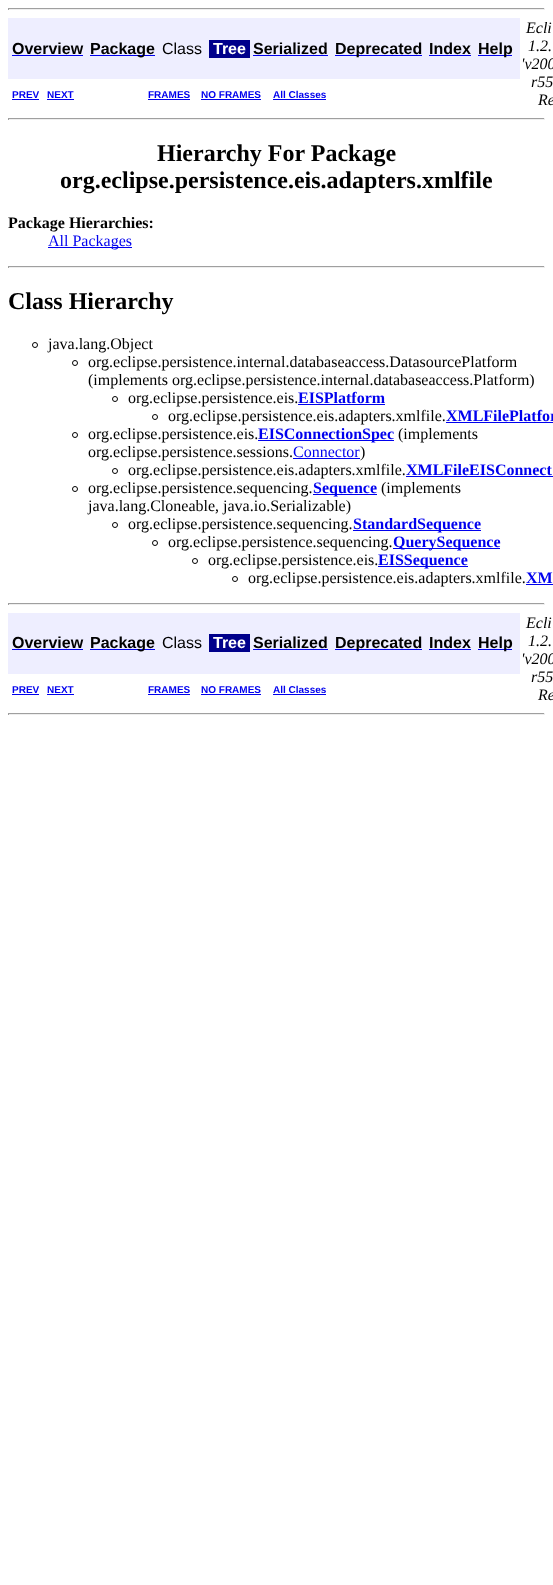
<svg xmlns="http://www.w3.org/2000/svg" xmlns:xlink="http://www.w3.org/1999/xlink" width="553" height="1585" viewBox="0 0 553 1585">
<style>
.cls-1{font:bold 16px Liberation Sans;fill:#000000}
.cls-2{font:16px Liberation Sans;fill:#000000}
.cls-3{font:bold 16px Liberation Sans;fill:#ffffff}
.cls-4{font:italic 16px Liberation Serif;fill:#000000}
.cls-5{font:bold 10px Liberation Sans;fill:#0000ee}
.cls-6{font:bold 24px Liberation Serif;fill:#000000}
.cls-7{font:bold 16px Liberation Serif;fill:#000000}
.cls-8{font:16px Liberation Serif;fill:#0000ee}
.cls-9{font:16px Liberation Serif;fill:#000000}
.cls-10{font:bold 16px Liberation Serif;fill:#0000ee}
</style>
<rect width="100%" height="100%" fill="#ffffff"/>
<rect fill="#9f9f9f" x="8" y="8" width="537" height="1"/>
<rect fill="#eeeeee" x="544" y="8" width="1" height="2"/>
<rect fill="#eeeeee" x="8" y="9" width="537" height="1"/>
<rect fill="#9f9f9f" x="8" y="8" width="1" height="2"/>
<rect fill="#eeeeff" x="8" y="18" width="512" height="61"/>
<rect fill="#0000ee" x="12" y="55" width="71" height="1"/>
<rect fill="#0000ee" x="90" y="55" width="65" height="1"/>
<rect fill="#00008b" x="209" y="40" width="41" height="18"/>
<rect fill="#0000ee" x="253" y="55" width="75" height="1"/>
<rect fill="#0000ee" x="335" y="55" width="87" height="1"/>
<rect fill="#0000ee" x="429" y="55" width="42" height="1"/>
<rect fill="#0000ee" x="478" y="55" width="34" height="1"/>
<rect fill="#0000ee" x="12" y="99" width="27" height="1"/>
<rect fill="#0000ee" x="47" y="99" width="27" height="1"/>
<rect fill="#0000ee" x="148" y="99" width="42" height="1"/>
<rect fill="#0000ee" x="201" y="99" width="60" height="1"/>
<rect fill="#0000ee" x="273" y="99" width="53" height="1"/>
<rect fill="#9f9f9f" x="8" y="118" width="537" height="1"/>
<rect fill="#eeeeee" x="544" y="118" width="1" height="2"/>
<rect fill="#eeeeee" x="8" y="119" width="537" height="1"/>
<rect fill="#9f9f9f" x="8" y="118" width="1" height="2"/>
<rect fill="#0000ee" x="48" y="247" width="84" height="1"/>
<rect fill="#9f9f9f" x="8" y="266" width="537" height="1"/>
<rect fill="#eeeeee" x="544" y="266" width="1" height="2"/>
<rect fill="#eeeeee" x="8" y="267" width="537" height="1"/>
<rect fill="#9f9f9f" x="8" y="266" width="1" height="2"/>
<circle fill="none" stroke="#000000" cx="35" cy="345" r="2.5"/>
<circle fill="none" stroke="#000000" cx="75" cy="363" r="2.5"/>
<circle fill="none" stroke="#000000" cx="115" cy="399" r="2.5"/>
<rect fill="#0000ee" x="298" y="404" width="87" height="1"/>
<circle fill="none" stroke="#000000" cx="155" cy="417" r="2.5"/>
<rect fill="#0000ee" x="446" y="422" width="107" height="1"/>
<circle fill="none" stroke="#000000" cx="75" cy="435" r="2.5"/>
<rect fill="#0000ee" x="258" y="440" width="136" height="1"/>
<rect fill="#0000ee" x="293" y="458" width="67" height="1"/>
<circle fill="none" stroke="#000000" cx="115" cy="471" r="2.5"/>
<rect fill="#0000ee" x="406" y="476" width="147" height="1"/>
<circle fill="none" stroke="#000000" cx="75" cy="489" r="2.5"/>
<rect fill="#0000ee" x="313" y="494" width="64" height="1"/>
<circle fill="none" stroke="#000000" cx="115" cy="525" r="2.5"/>
<rect fill="#0000ee" x="353" y="530" width="128" height="1"/>
<circle fill="none" stroke="#000000" cx="155" cy="543" r="2.5"/>
<rect fill="#0000ee" x="393" y="548" width="107" height="1"/>
<circle fill="none" stroke="#000000" cx="195" cy="561" r="2.5"/>
<rect fill="#0000ee" x="378" y="566" width="90" height="1"/>
<circle fill="none" stroke="#000000" cx="235" cy="579" r="2.5"/>
<rect fill="#0000ee" x="526" y="584" width="27" height="1"/>
<rect fill="#9f9f9f" x="8" y="603" width="537" height="1"/>
<rect fill="#eeeeee" x="544" y="603" width="1" height="2"/>
<rect fill="#eeeeee" x="8" y="604" width="537" height="1"/>
<rect fill="#9f9f9f" x="8" y="603" width="1" height="2"/>
<rect fill="#eeeeff" x="8" y="613" width="512" height="61"/>
<rect fill="#0000ee" x="12" y="649" width="71" height="1"/>
<rect fill="#0000ee" x="90" y="649" width="65" height="1"/>
<rect fill="#00008b" x="209" y="634" width="41" height="18"/>
<rect fill="#0000ee" x="253" y="649" width="75" height="1"/>
<rect fill="#0000ee" x="335" y="649" width="87" height="1"/>
<rect fill="#0000ee" x="429" y="649" width="42" height="1"/>
<rect fill="#0000ee" x="478" y="649" width="34" height="1"/>
<rect fill="#0000ee" x="12" y="694" width="27" height="1"/>
<rect fill="#0000ee" x="47" y="694" width="27" height="1"/>
<rect fill="#0000ee" x="148" y="694" width="42" height="1"/>
<rect fill="#0000ee" x="201" y="694" width="60" height="1"/>
<rect fill="#0000ee" x="273" y="694" width="53" height="1"/>
<rect fill="#9f9f9f" x="8" y="713" width="537" height="1"/>
<rect fill="#eeeeee" x="544" y="713" width="1" height="2"/>
<rect fill="#eeeeee" x="8" y="714" width="537" height="1"/>
<rect fill="#9f9f9f" x="8" y="713" width="1" height="2"/>
<text class="cls-1" x="12" y="54">Overview</text>
<text class="cls-1" x="90" y="54">Package</text>
<text class="cls-2" x="162" y="54">Class</text>
<text class="cls-3" x="213" y="54">Tree</text>
<text class="cls-1" x="253" y="54">Serialized</text>
<text class="cls-1" x="335" y="54">Deprecated</text>
<text class="cls-1" x="429" y="54">Index</text>
<text class="cls-1" x="478" y="54">Help</text>
<text class="cls-4" x="526" y="33">Ecli</text>
<text class="cls-4" x="528" y="51">1.2.</text>
<text class="cls-4" x="521" y="69">'v200</text>
<text class="cls-4" x="531" y="87">r55</text>
<text class="cls-4" x="538" y="105">Re</text>
<text class="cls-5" x="12" y="98">PREV</text>
<text class="cls-5" x="47" y="98">NEXT</text>
<text class="cls-5" x="148" y="98">FRAMES</text>
<text class="cls-5" x="201" y="98">NO FRAMES</text>
<text class="cls-5" x="273" y="98">All Classes</text>
<text class="cls-6" x="157" y="161">Hierarchy For Package</text>
<text class="cls-6" x="60" y="188">org.eclipse.persistence.eis.adapters.xmlfile</text>
<text class="cls-7" x="8" y="228">Package Hierarchies:</text>
<text class="cls-8" x="48" y="246">All Packages</text>
<text class="cls-6" x="8" y="309">Class Hierarchy</text>
<text class="cls-9" x="48" y="349">java.lang.Object</text>
<text class="cls-9"><tspan x="88" y="367">org.eclipse.persistence.internal.databaseaccess.DatasourcePlatform</tspan><tspan x="88" y="385">(implements org.eclipse.persistence.internal.databaseaccess.Platform)</tspan></text>
<text class="cls-9" x="128" y="403">org.eclipse.persistence.eis.</text>
<text class="cls-10" x="298" y="403">EISPlatform</text>
<text class="cls-9" x="168" y="421">org.eclipse.persistence.eis.adapters.xmlfile.</text>
<text class="cls-10" x="446" y="421">XMLFilePlatfor</text>
<text class="cls-9" x="88" y="439">org.eclipse.persistence.eis.</text>
<text class="cls-10" x="258" y="439">EISConnectionSpec</text>
<text class="cls-9" x="398" y="439">(implements</text>
<text class="cls-9" x="88" y="457">org.eclipse.persistence.sessions.</text>
<text class="cls-8" x="293" y="457">Connector</text>
<text class="cls-9" x="360" y="457">)</text>
<text class="cls-9" x="128" y="475">org.eclipse.persistence.eis.adapters.xmlfile.</text>
<text class="cls-10" x="406" y="475">XMLFileEISConnect</text>
<text class="cls-9" x="88" y="493">org.eclipse.persistence.sequencing.</text>
<text class="cls-10" x="313" y="493">Sequence</text>
<text class="cls-9" x="381" y="493">(implements</text>
<text class="cls-9" x="88" y="511">java.lang.Cloneable, java.io.Serializable)</text>
<text class="cls-9" x="128" y="529">org.eclipse.persistence.sequencing.</text>
<text class="cls-10" x="353" y="529">StandardSequence</text>
<text class="cls-9" x="168" y="547">org.eclipse.persistence.sequencing.</text>
<text class="cls-10" x="393" y="547">QuerySequence</text>
<text class="cls-9" x="208" y="565">org.eclipse.persistence.eis.</text>
<text class="cls-10" x="378" y="565">EISSequence</text>
<text class="cls-9" x="248" y="583">org.eclipse.persistence.eis.adapters.xmlfile.</text>
<text class="cls-10" x="526" y="583">XM</text>
<text class="cls-1" x="12" y="648">Overview</text>
<text class="cls-1" x="90" y="648">Package</text>
<text class="cls-2" x="162" y="648">Class</text>
<text class="cls-3" x="213" y="648">Tree</text>
<text class="cls-1" x="253" y="648">Serialized</text>
<text class="cls-1" x="335" y="648">Deprecated</text>
<text class="cls-1" x="429" y="648">Index</text>
<text class="cls-1" x="478" y="648">Help</text>
<text class="cls-4" x="526" y="628">Ecli</text>
<text class="cls-4" x="528" y="646">1.2.</text>
<text class="cls-4" x="521" y="664">'v200</text>
<text class="cls-4" x="531" y="682">r55</text>
<text class="cls-4" x="538" y="700">Re</text>
<text class="cls-5" x="12" y="693">PREV</text>
<text class="cls-5" x="47" y="693">NEXT</text>
<text class="cls-5" x="148" y="693">FRAMES</text>
<text class="cls-5" x="201" y="693">NO FRAMES</text>
<text class="cls-5" x="273" y="693">All Classes</text>
</svg>
